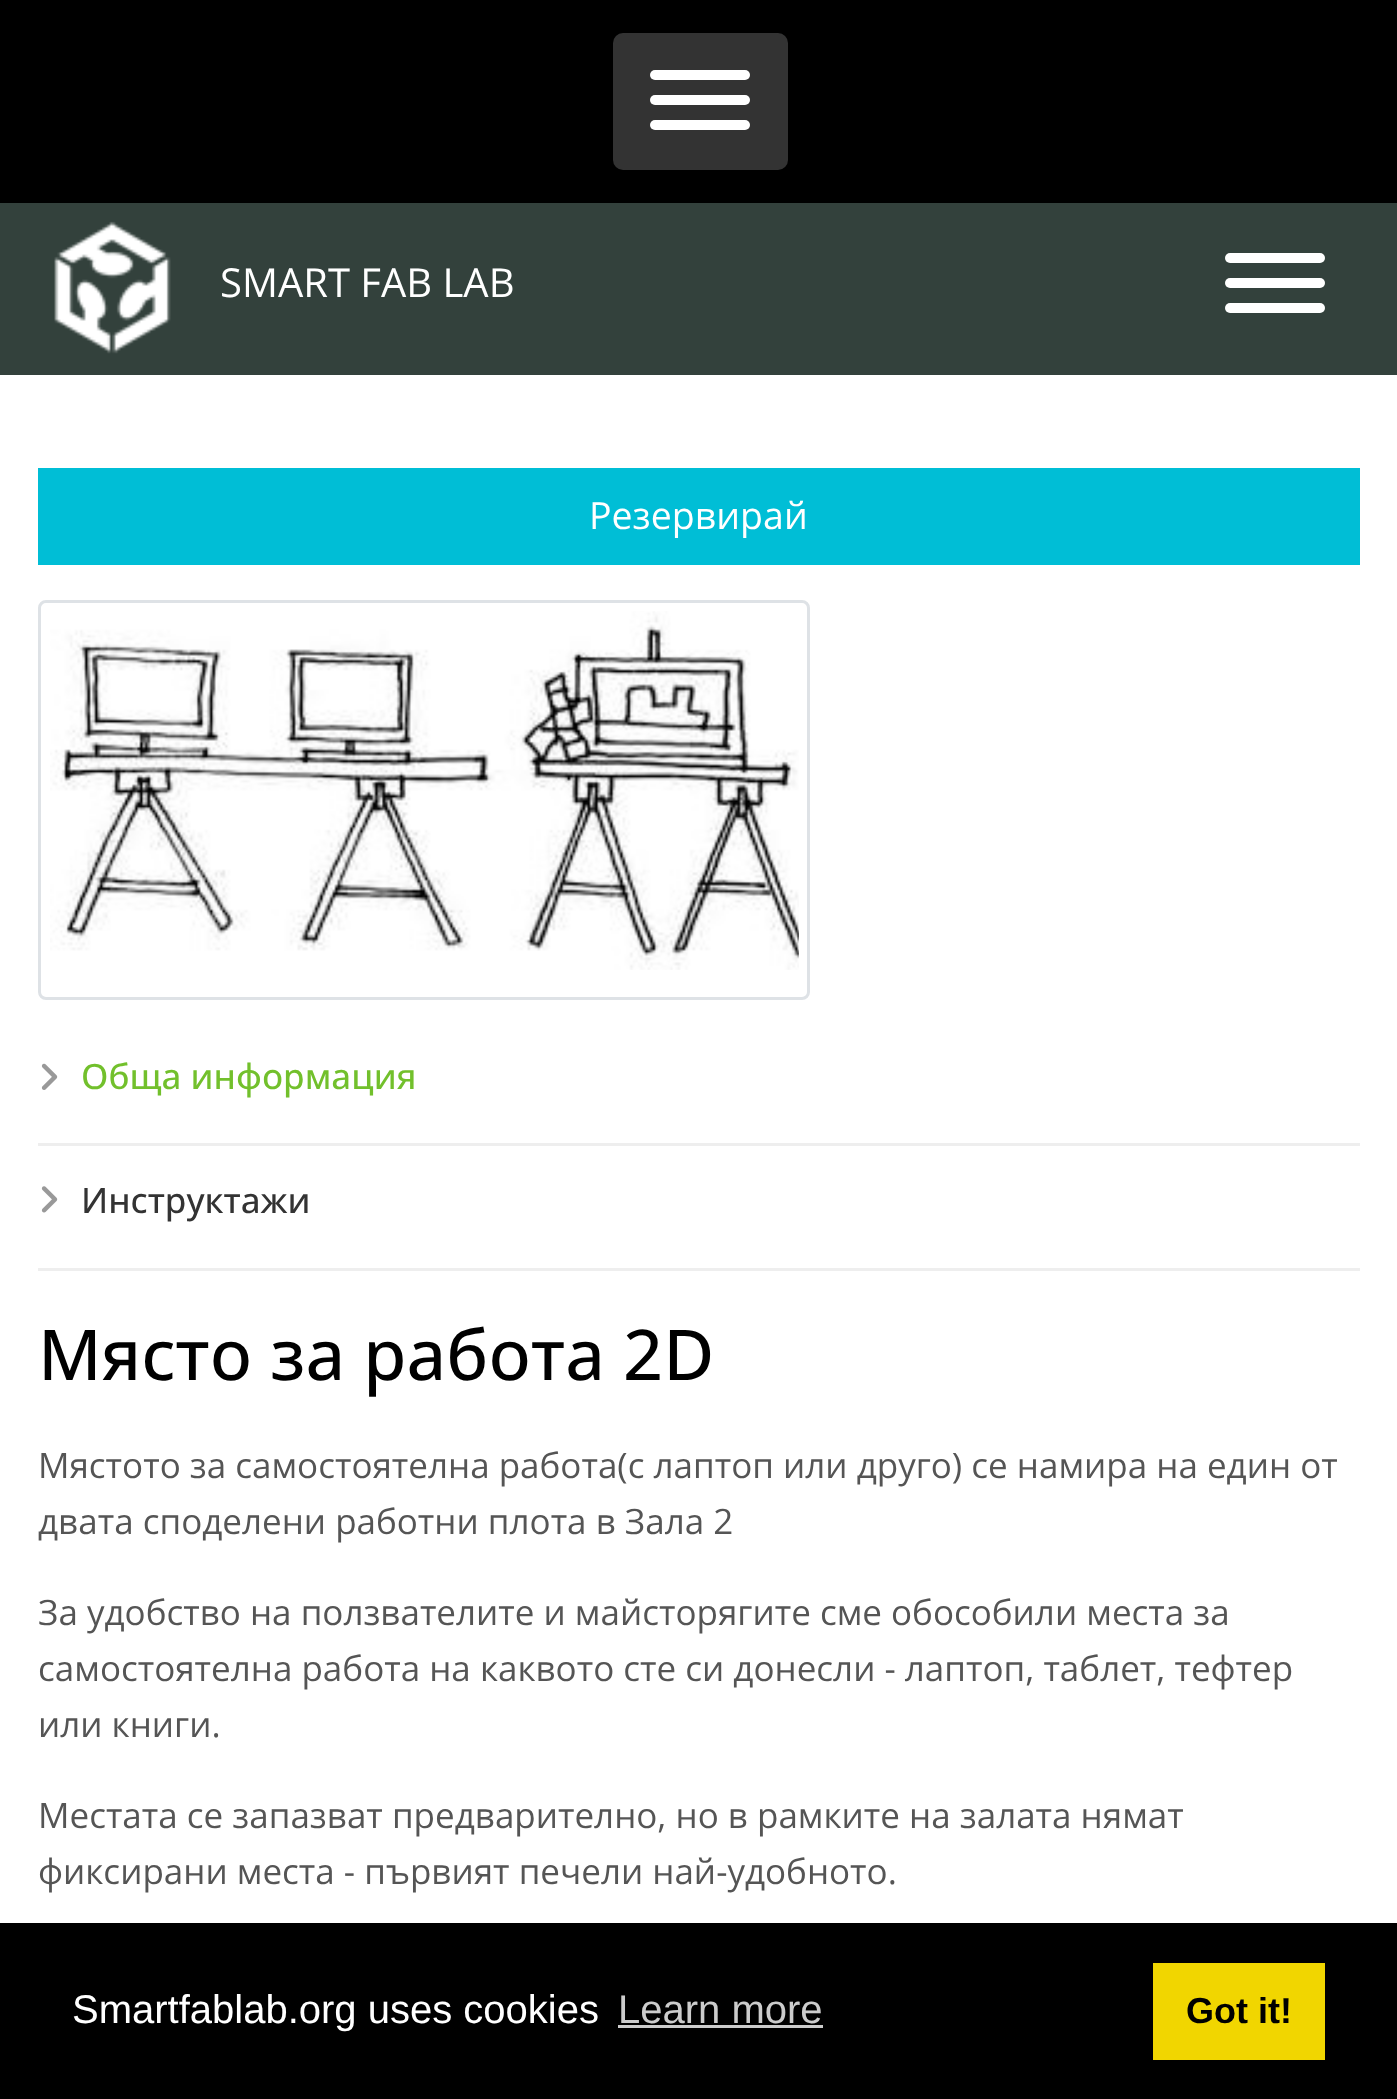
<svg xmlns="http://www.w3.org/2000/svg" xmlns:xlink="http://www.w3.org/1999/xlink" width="1397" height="2099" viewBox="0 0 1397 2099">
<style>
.cls-1{font:40px Open Sans;fill:#ffffff}
.cls-2{font:37.5px Open Sans;fill:#ffffff}
.cls-3{font:500 35px Open Sans;fill:#72c02c}
.cls-4{font:500 35px Open Sans;fill:#333333}
.cls-5{font:500 70px Open Sans;fill:#000000}
.cls-6{font:35px Open Sans;fill:#555555}
.cls-7{font:40px Liberation Sans;fill:#ffffff}
.cls-8{font:40px Liberation Sans;fill:#cccccc}
.cls-9{font:bold 36px Liberation Sans;fill:#000000}
</style>
<rect width="100%" height="100%" fill="#ffffff"/>
<rect fill="#000000" x="0" y="0" width="1397" height="203"/>
<rect fill="#333333" x="613" y="33" width="175" height="137" rx="10"/>
<rect fill="#ffffff" x="650" y="70" width="100" height="10" rx="5"/>
<rect fill="#ffffff" x="650" y="95" width="100" height="10" rx="5"/>
<rect fill="#ffffff" x="650" y="120" width="100" height="10" rx="5"/>
<rect fill="#33413c" x="0" y="203" width="1397" height="172"/>
<image xlink:href="image0.png" x="54" y="221" width="117" height="133"/>
<rect fill="#ffffff" x="1225" y="253" width="100" height="10" rx="5"/>
<rect fill="#ffffff" x="1225" y="278" width="100" height="10" rx="5"/>
<rect fill="#ffffff" x="1225" y="303" width="100" height="10" rx="5"/>
<rect fill="#00bed6" x="38" y="468" width="1322" height="97"/>
<rect fill="none" stroke="#dee2e6" stroke-width="3" x="39.5" y="601.5" width="769" height="397" rx="6.5"/>
<image xlink:href="image1.png" x="50" y="611" width="749" height="359"/>
<rect fill="#eeeeee" x="38" y="1143" width="1322" height="3"/>
<image xlink:href="image2.png" x="41" y="1063" width="17" height="27"/>
<rect fill="#eeeeee" x="38" y="1268" width="1322" height="3"/>
<image xlink:href="image3.png" x="41" y="1186" width="17" height="27"/>
<rect fill="#000000" x="0" y="1923" width="1397" height="176"/>
<rect fill="#cccccc" x="618" y="2025" width="205" height="3"/>
<rect fill="#f1d600" x="1153" y="1963" width="172" height="97"/>
<text class="cls-1" x="220" y="297">SMART FAB LAB</text>
<text class="cls-2" x="589" y="529">Резервирай</text>
<text class="cls-3" x="81" y="1089">Обща информация</text>
<text class="cls-4" x="81" y="1213">Инструктажи</text>
<text class="cls-5" x="38" y="1380">Място за работа 2D</text>
<text class="cls-6"><tspan x="38" y="1478">Мястото за самостоятелна работа(с лаптоп или друго) се намира на един от</tspan><tspan x="38" y="1534">двата споделени работни плота в Зала 2</tspan></text>
<text class="cls-6"><tspan x="38" y="1625">За удобство на ползвателите и майсторягите сме обособили места за</tspan><tspan x="38" y="1681">самостоятелна работа на каквото сте си донесли - лаптоп, таблет, тефтер</tspan><tspan x="38" y="1737">или книги.</tspan></text>
<text class="cls-6"><tspan x="38" y="1828">Местата се запазват предварително, но в рамките на залата нямат</tspan><tspan x="38" y="1884">фиксирани места - първият печели най-удобното.</tspan></text>
<text class="cls-7" x="72" y="2023">Smartfablab.org uses cookies</text>
<text class="cls-8" x="618" y="2023">Learn more</text>
<text class="cls-9" x="1186" y="2023">Got it!</text>
</svg>
